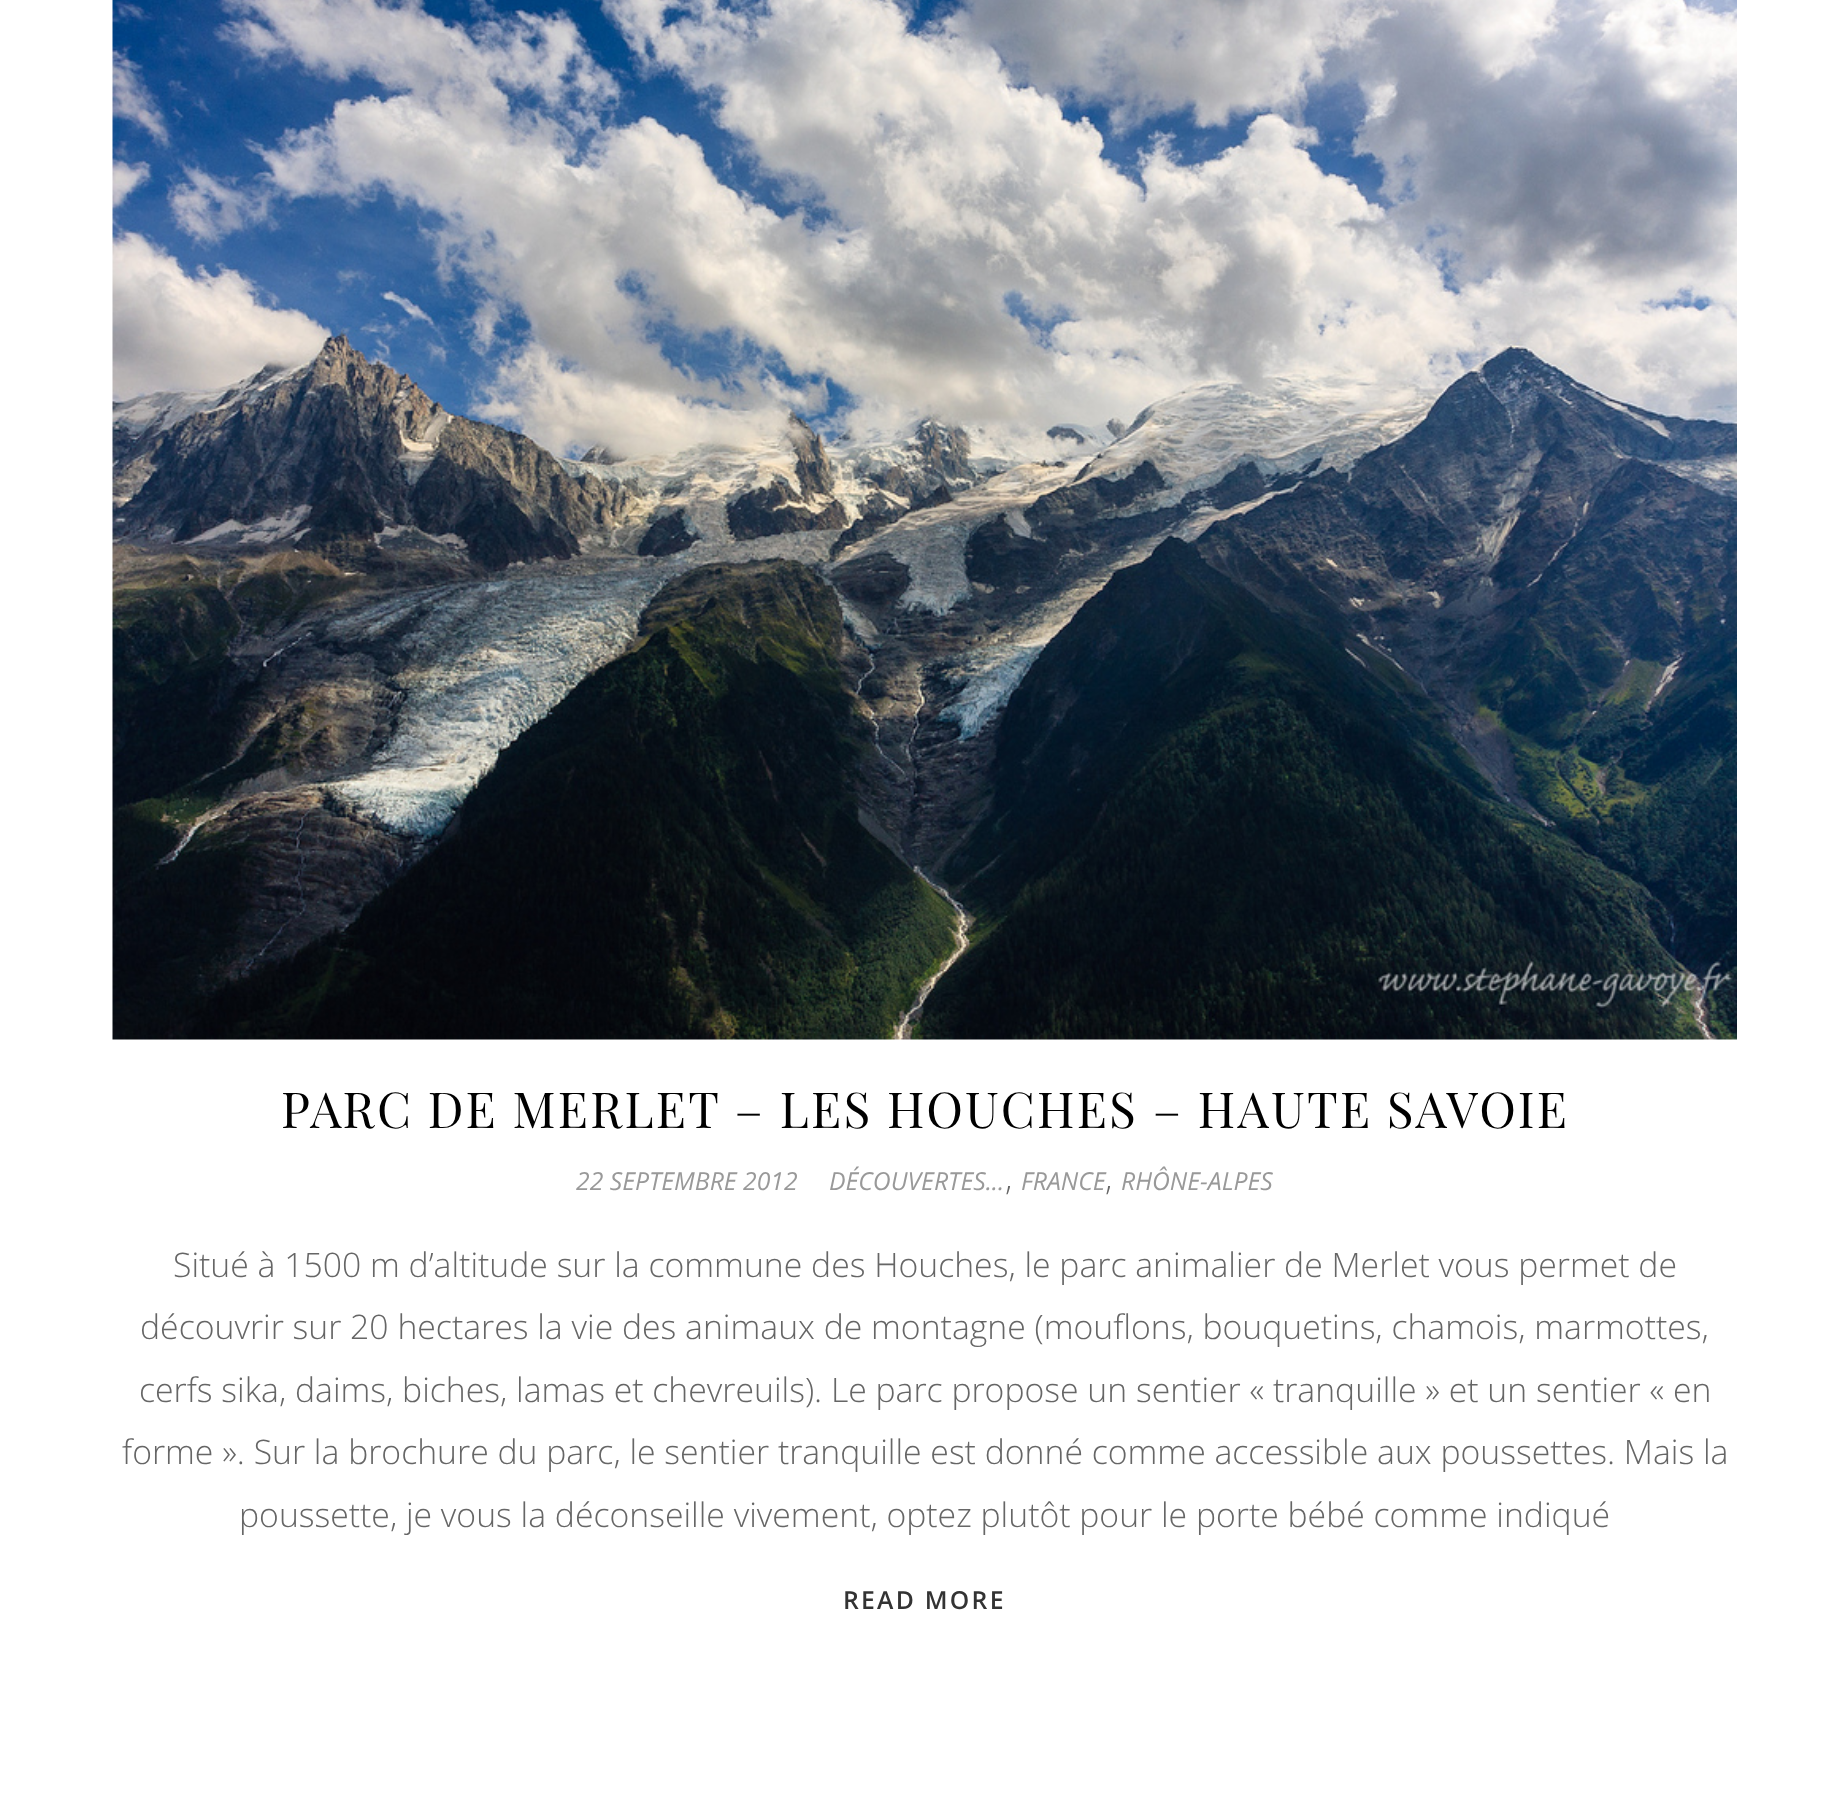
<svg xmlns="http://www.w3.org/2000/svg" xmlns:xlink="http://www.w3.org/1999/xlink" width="1848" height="1818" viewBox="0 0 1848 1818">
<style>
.cls-1{font:49.5px Playfair Display;letter-spacing:2.25px;fill:#000000}
.cls-2{font:italic 24.75px Open Sans;fill:#999999}
.cls-3{font:300 33.75px Open Sans;fill:#666666}
.cls-4{font:600 24.75px Open Sans;letter-spacing:2.25px;fill:#333333}
</style>
<rect width="100%" height="100%" fill="#ffffff"/>
<image xlink:href="image0.png" x="112" y="0" width="1625" height="1040"/>
<text class="cls-1" x="281" y="1128">PARC DE MERLET – LES HOUCHES – HAUTE SAVOIE</text>
<text class="cls-2" x="576" y="1190">22 SEPTEMBRE 2012</text>
<text class="cls-2" x="829" y="1190">DÉCOUVERTES...</text>
<text class="cls-3" x="1005" y="1190">,</text>
<text class="cls-2" x="1021" y="1190">FRANCE</text>
<text class="cls-3" x="1105" y="1190">,</text>
<text class="cls-2" x="1121" y="1190">RHÔNE-ALPES</text>
<text class="cls-3" x="173" y="1277">Situé à 1500 m d’altitude sur la commune des Houches, le parc animalier de Merlet vous permet de</text>
<text class="cls-3" x="140" y="1339">découvrir sur 20 hectares la vie des animaux de montagne (mouflons, bouquetins, chamois, marmottes,</text>
<text class="cls-3" x="139" y="1402">cerfs sika, daims, biches, lamas et chevreuils). Le parc propose un sentier « tranquille » et un sentier « en</text>
<text class="cls-3" x="122" y="1464">forme ». Sur la brochure du parc, le sentier tranquille est donné comme accessible aux poussettes. Mais la</text>
<text class="cls-3" x="239" y="1527">poussette, je vous la déconseille vivement, optez plutôt pour le porte bébé comme indiqué</text>
<text class="cls-4" x="843" y="1609">READ MORE</text>
</svg>
